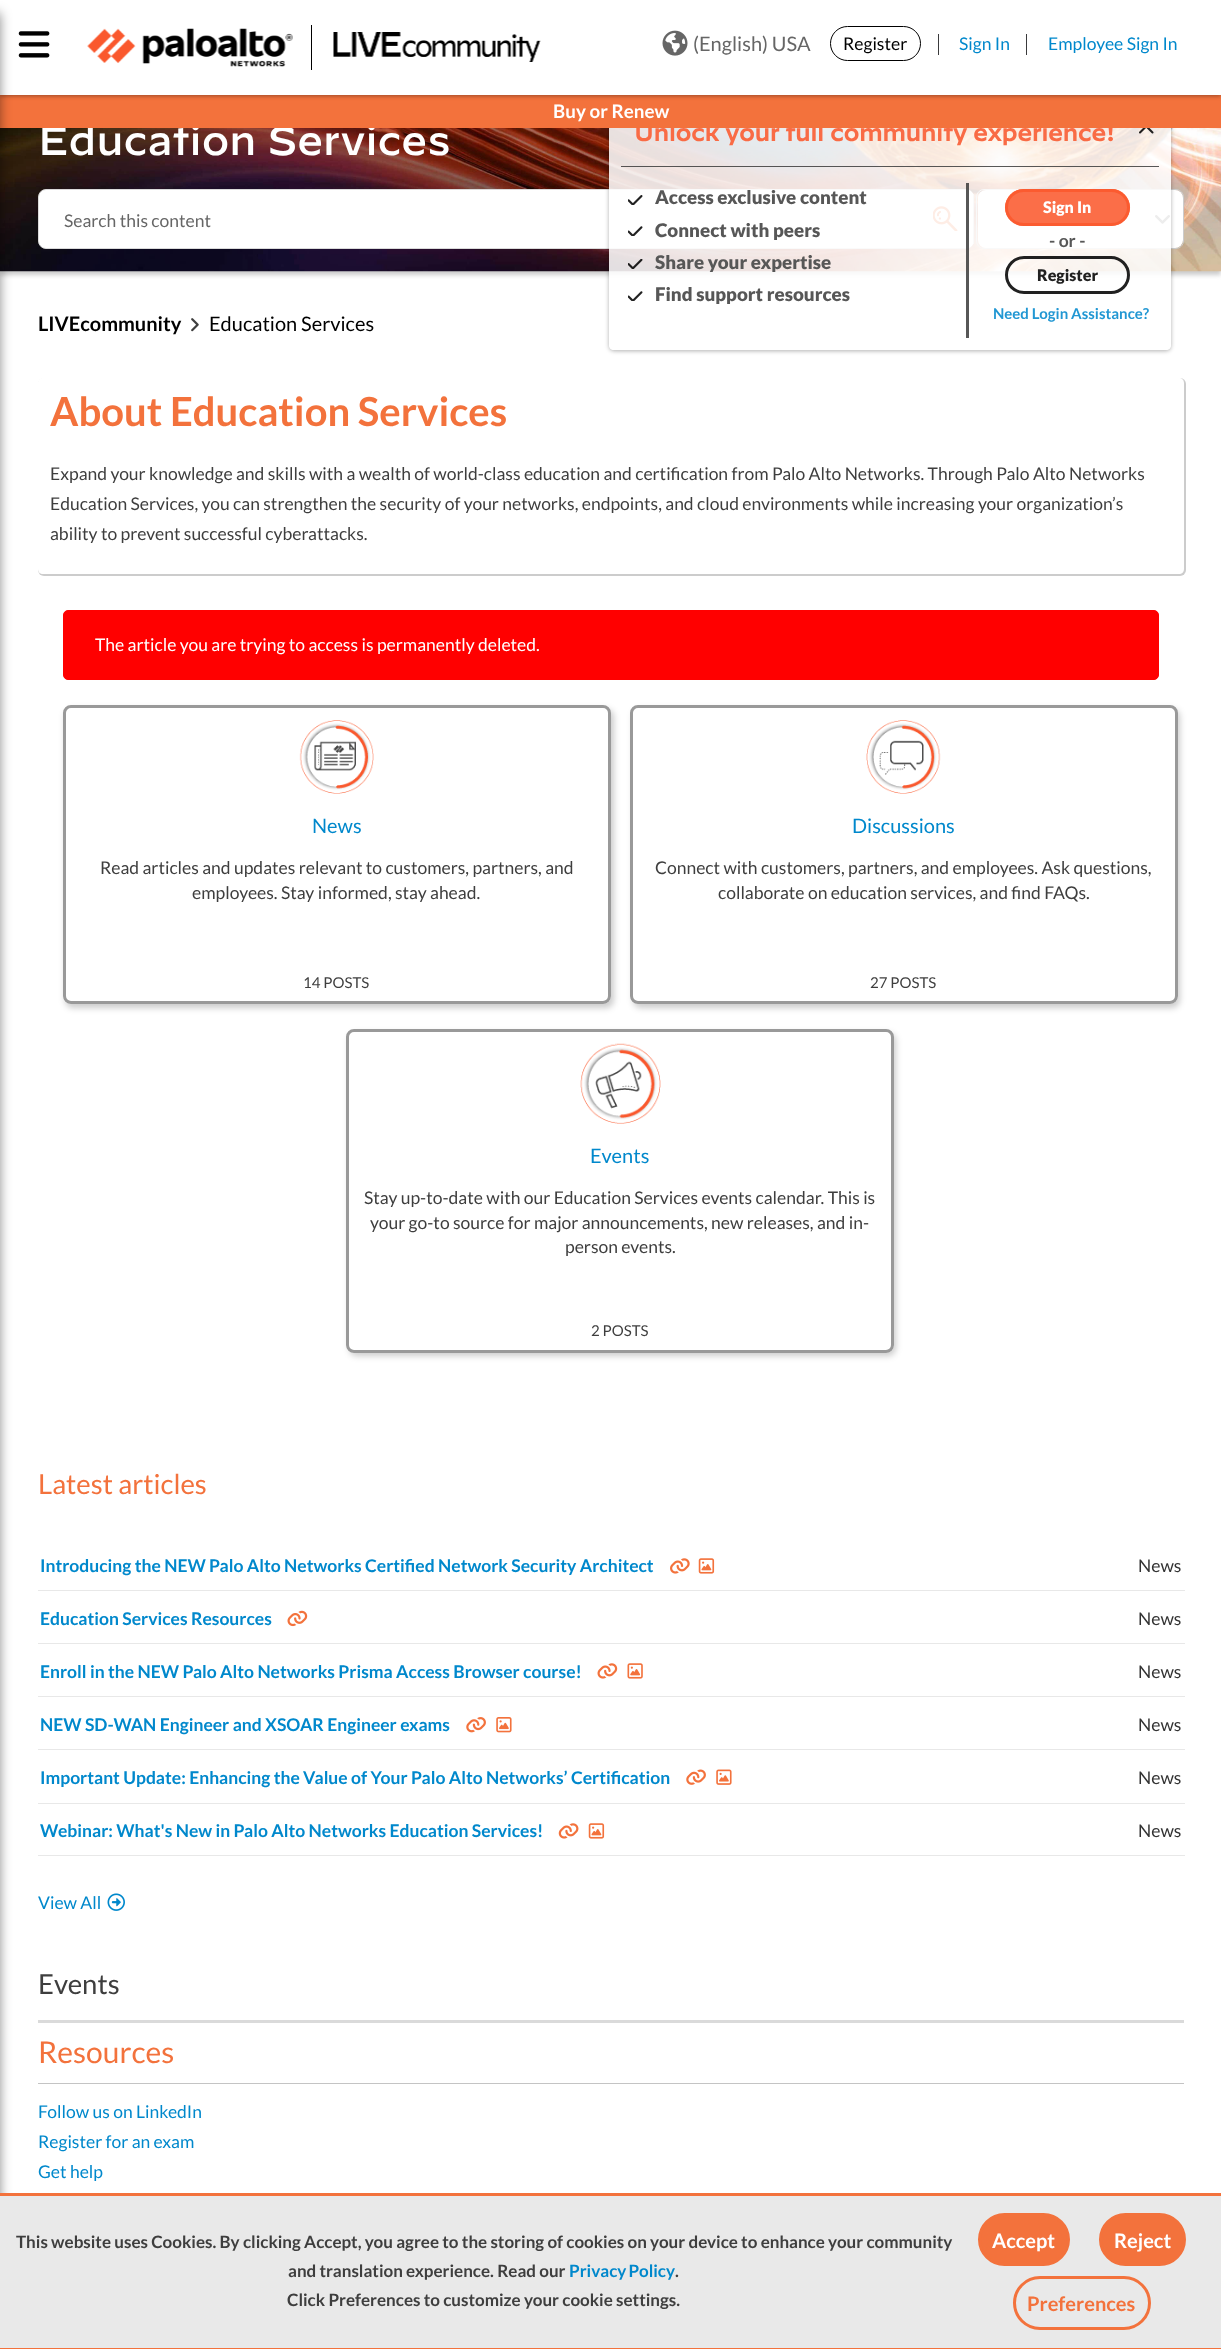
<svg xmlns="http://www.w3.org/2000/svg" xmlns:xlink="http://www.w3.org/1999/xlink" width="1221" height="2349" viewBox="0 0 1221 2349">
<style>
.cls-1{font:300 40px 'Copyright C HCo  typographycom';fill:#ffffff}
.cls-2{font:17.5px Lato;fill:#666666}
.cls-3{font:bold 22.5px 'Copyright C HCo  typographycom';fill:#f96b45}
.cls-4{font:20px Lato;fill:#666666}
.cls-5{font:17.5px Lato;fill:#0088cc}
.cls-6{font:17.5px Lato;fill:#000000}
.cls-7{font:bold 18.75px Lato;fill:#ffffff}
.cls-8{font:900 18.75px Lato;fill:#575757}
.cls-9{font:900 16px Lato;fill:#ffffff}
.cls-10{font:bold 17.5px Lato;fill:#575757}
.cls-11{font:900 16px Lato;fill:#212121}
.cls-12{font:bold 15px Lato;fill:#2197d3}
.cls-13{font:bold 20px Lato;fill:#000000}
.cls-14{font:20px Lato;fill:#000000}
.cls-15{font:bold 40px Lato;fill:#f3723c}
.cls-16{font:17.5px Lato;fill:#3e3e3e}
.cls-17{font:17.5px Lato;fill:#ffffff}
.cls-18{font:20px Lato;fill:#0088cc}
.cls-19{font:15px Lato;fill:#3e3e3e}
.cls-20{font:27.5px Lato;fill:#f3723c}
.cls-21{font:bold 17.5px Lato;fill:#0088cc}
.cls-22{font:17.5px Lato;fill:#333333}
.cls-23{font:27.5px Lato;fill:#3e3e3e}
.cls-24{font:30px Lato;fill:#f3723c}
.cls-25{font:bold 17px Lato;fill:#3e3e3e}
.cls-26{font:bold 17px Lato;fill:#0088cc}
.cls-27{font:bold 20px Lato;fill:#ffffff}
.cls-28{font:bold 20px Lato;fill:#f3723c}
</style>
<defs>
<clipPath id="clip1"><path d="M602 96H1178V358H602ZM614 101H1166C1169 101 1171 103 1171 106V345C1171 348 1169 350 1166 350H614C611 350 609 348 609 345V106C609 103 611 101 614 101Z" clip-rule="evenodd"/></clipPath>
<clipPath id="clip2"><path d="M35 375H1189V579H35ZM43 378H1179C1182 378 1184 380 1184 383V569C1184 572 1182 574 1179 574H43C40 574 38 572 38 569V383C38 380 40 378 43 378Z" clip-rule="evenodd"/></clipPath>
<clipPath id="clip3"><path d="M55 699H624V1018H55ZM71 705H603C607.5 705 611 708.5 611 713V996C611 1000.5 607.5 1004 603 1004H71C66.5 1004 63 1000.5 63 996V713C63 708.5 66.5 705 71 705Z" clip-rule="evenodd"/></clipPath>
<clipPath id="clip4"><path d="M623 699H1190V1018H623ZM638 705H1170C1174.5 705 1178 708.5 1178 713V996C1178 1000.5 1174.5 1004 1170 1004H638C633.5 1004 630 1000.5 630 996V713C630 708.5 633.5 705 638 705Z" clip-rule="evenodd"/></clipPath>
<clipPath id="clip5"><path d="M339 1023H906V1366H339ZM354 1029H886C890.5 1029 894 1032.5 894 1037V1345C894 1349.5 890.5 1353 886 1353H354C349.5 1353 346 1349.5 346 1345V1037C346 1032.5 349.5 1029 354 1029Z" clip-rule="evenodd"/></clipPath>
</defs>
<rect width="100%" height="100%" fill="#ffffff"/>
<rect fill="#cccccc" filter="blur(2px)" x="0" y="94" width="1221" height="181"/>
<image xlink:href="image4.png" x="0" y="128" width="1221" height="144"/>
<rect fill="#ffffff" stroke="#dadada" x="38.5" y="189.5" width="935" height="59" rx="7.5"/>
<path fill="#ffffff" d="M916 190H966C970.5 190 974 193.5 974 198V240C974 244.5 970.5 248 966 248H916Z"/>
<image xlink:href="image5.png" x="933" y="206" width="25" height="25"/>
<rect fill="#dadada" x="973" y="194" width="1" height="50"/>
<rect fill="none" stroke="#cccccc" x="976.5" y="189.5" width="207" height="59" rx="7.5"/>
<rect fill="#ffffff" x="978" y="190" width="205" height="58" rx="8"/>
<image xlink:href="image6.png" x="1155" y="215" width="15" height="9"/>
<g clip-path="url(#clip1)">
<rect fill="#000000" fill-opacity="0.31" filter="blur(2px)" x="609" y="103" width="562" height="248" rx="5"/>
</g>
<rect fill="#ffffff" fill-opacity="0.87" x="609" y="101" width="562" height="249" rx="5"/>
<rect fill="#3e3e3e" fill-opacity="0.87" x="621" y="166" width="538" height="1"/>
<image xlink:href="image7.png" x="1139" y="128" width="15" height="6"/>
<rect fill="#3e3e3e" fill-opacity="0.87" x="966" y="183" width="3" height="155"/>
<image xlink:href="image8.png" x="628" y="195" width="15" height="10"/>
<image xlink:href="image9.png" x="628" y="226" width="15" height="10"/>
<image xlink:href="image10.png" x="628" y="259" width="15" height="10"/>
<image xlink:href="image9.png" x="628" y="291" width="15" height="10"/>
<rect fill="#fa582d" fill-opacity="0.87" x="1005" y="189" width="125" height="37" rx="18.5"/>
<rect fill="none" stroke="#fa582d" stroke-opacity="0.87" stroke-width="3" x="1006.5" y="190.5" width="122" height="34" rx="17"/>
<rect fill="none" stroke="#000000" stroke-opacity="0.87" stroke-width="3" x="1006.5" y="257.5" width="122" height="35" rx="17.5"/>
<image xlink:href="image11.png" x="191" y="318" width="8" height="14"/>
<g clip-path="url(#clip2)">
<rect fill="#cccccc" filter="blur(0.5px)" x="38" y="378" width="1148" height="198" rx="6"/>
</g>
<rect fill="#ff0000" stroke="#ff0000" x="63.5" y="610.5" width="1095" height="69" rx="4.5"/>
<g clip-path="url(#clip3)">
<rect fill="#000000" fill-opacity="0.2" filter="blur(3px)" x="65" y="709" width="549" height="299" rx="8"/>
</g>
<rect fill="none" stroke="#999999" stroke-width="3" x="64.5" y="706.5" width="545" height="296" rx="6.5"/>
<image xlink:href="image12.png" x="299" y="720" width="75" height="74"/>
<g clip-path="url(#clip4)">
<rect fill="#000000" fill-opacity="0.2" filter="blur(3px)" x="633" y="709" width="547" height="299" rx="8"/>
</g>
<rect fill="none" stroke="#999999" stroke-width="3" x="631.5" y="706.5" width="545" height="296" rx="6.5"/>
<image xlink:href="image13.png" x="866" y="720" width="75" height="74"/>
<g clip-path="url(#clip5)">
<rect fill="#000000" fill-opacity="0.2" filter="blur(3px)" x="349" y="1033" width="547" height="323" rx="8"/>
</g>
<rect fill="none" stroke="#999999" stroke-width="3" x="347.5" y="1030.5" width="545" height="321" rx="6.5"/>
<image xlink:href="image14.png" x="580" y="1043" width="81" height="81"/>
<image xlink:href="image15.png" x="670" y="1558" width="20" height="16"/>
<image xlink:href="image16.png" x="698" y="1558" width="17" height="16"/>
<rect fill="#e8e8e8" x="38" y="1590" width="1147" height="1"/>
<image xlink:href="image17.png" x="287" y="1610" width="21" height="17"/>
<rect fill="#e8e8e8" x="38" y="1643" width="1147" height="1"/>
<image xlink:href="image18.png" x="597" y="1663" width="21" height="16"/>
<image xlink:href="image19.png" x="627" y="1663" width="16" height="16"/>
<rect fill="#e8e8e8" x="38" y="1696" width="1147" height="1"/>
<image xlink:href="image20.png" x="466" y="1717" width="20" height="16"/>
<image xlink:href="image21.png" x="496" y="1717" width="16" height="16"/>
<rect fill="#e8e8e8" x="38" y="1749" width="1147" height="1"/>
<image xlink:href="image22.png" x="686" y="1769" width="20" height="16"/>
<image xlink:href="image23.png" x="716" y="1769" width="16" height="16"/>
<rect fill="#e8e8e8" x="38" y="1803" width="1147" height="1"/>
<image xlink:href="image24.png" x="558" y="1823" width="21" height="16"/>
<image xlink:href="image16.png" x="588" y="1823" width="17" height="16"/>
<rect fill="#e8e8e8" x="38" y="1855" width="1147" height="1"/>
<image xlink:href="image25.png" x="107" y="1893" width="18" height="18"/>
<rect fill="#dadada" x="38" y="2020" width="1146" height="3"/>
<rect fill="#c4c4c4" x="38" y="2083" width="1146" height="1"/>
<text class="cls-1" x="38" y="155">Education Services</text>
<text class="cls-2" x="64" y="227">Search this content</text>
<text class="cls-3" x="634" y="141">Unlock your full community experience!</text>
<rect fill="#f3723c" x="0" y="95" width="1221" height="33"/>
<rect fill="#000000" fill-opacity="0.36" filter="blur(2px)" x="0" y="1" width="1221" height="95"/>
<rect fill="#ffffff" x="0" y="0" width="1221" height="95"/>
<image xlink:href="image0.png" x="18" y="31" width="32" height="27"/>
<rect fill="#000000" fill-opacity="0.45" filter="blur(6px)" x="-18" y="13" width="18" height="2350"/>
<image xlink:href="image3.png" x="662" y="30" width="26" height="26"/>
<text class="cls-4" x="693" y="51">(English) USA</text>
<rect fill="#3a3a3c" x="1026" y="34" width="1" height="21"/>
<rect fill="#3a3a3c" x="938" y="34" width="1" height="21"/>
<text class="cls-5" x="1048" y="50">Employee Sign In</text>
<text class="cls-5" x="959" y="50">Sign In</text>
<rect fill="none" stroke="#000000" x="830.5" y="26.5" width="90" height="34" rx="17"/>
<text class="cls-6" x="843" y="50">Register</text>
<image xlink:href="image2.png" x="333" y="32" width="208" height="30"/>
<image xlink:href="image1.png" x="87" y="28" width="206" height="39"/>
<rect fill="#000000" x="311" y="25" width="1" height="45"/>
<text class="cls-7" x="553" y="118">Buy or Renew</text>
<text class="cls-8"><tspan x="655" y="204">Access exclusive content</tspan><tspan x="655" y="237">Connect with peers</tspan><tspan x="655" y="269">Share your expertise</tspan><tspan x="655" y="301">Find support resources</tspan></text>
<text class="cls-9" x="1043" y="213">Sign In</text>
<text class="cls-10" x="1049" y="247">- or -</text>
<text class="cls-11" x="1037" y="281">Register</text>
<text class="cls-12" x="993" y="319">Need Login Assistance?</text>
<text class="cls-13" x="38" y="331">LIVEcommunity</text>
<text class="cls-14" x="209" y="331">Education Services</text>
<text class="cls-15" x="50" y="426">About Education Services</text>
<text class="cls-16"><tspan x="50" y="480">Expand your knowledge and skills with a wealth of world-class education and certification from Palo Alto Networks. Through Palo Alto Networks</tspan><tspan x="50" y="510">Education Services, you can strengthen the security of your networks, endpoints, and cloud environments while increasing your organization’s</tspan><tspan x="50" y="540">ability to prevent successful cyberattacks.</tspan></text>
<text class="cls-17" x="95" y="651">The article you are trying to access is permanently deleted.</text>
<text class="cls-18" x="312" y="833">News</text>
<text class="cls-16" x="100" y="874">Read articles and updates relevant to customers, partners, and</text>
<text class="cls-16" x="192" y="899">employees. Stay informed, stay ahead.</text>
<text class="cls-19" x="303" y="988">14 POSTS</text>
<text class="cls-18" x="852" y="833">Discussions</text>
<text class="cls-16" x="655" y="874">Connect with customers, partners, and employees. Ask questions,</text>
<text class="cls-16" x="718" y="899">collaborate on education services, and find FAQs.</text>
<text class="cls-19" x="870" y="988">27 POSTS</text>
<text class="cls-18" x="590" y="1163">Events</text>
<text class="cls-16" x="364" y="1204">Stay up-to-date with our Education Services events calendar. This is</text>
<text class="cls-16" x="370" y="1229">your go-to source for major announcements, new releases, and in-</text>
<text class="cls-16" x="565" y="1253">person events.</text>
<text class="cls-19" x="591" y="1336">2 POSTS</text>
<text class="cls-20" x="38" y="1494">Latest articles</text>
<text class="cls-21" x="40" y="1572">Introducing the NEW Palo Alto Networks Certified Network Security Architect</text>
<text class="cls-22" x="1138" y="1572">News</text>
<text class="cls-21" x="40" y="1625">Education Services Resources</text>
<text class="cls-22" x="1138" y="1625">News</text>
<text class="cls-21" x="40" y="1678">Enroll in the NEW Palo Alto Networks Prisma Access Browser course!</text>
<text class="cls-22" x="1138" y="1678">News</text>
<text class="cls-21" x="40" y="1731">NEW SD-WAN Engineer and XSOAR Engineer exams</text>
<text class="cls-22" x="1138" y="1731">News</text>
<text class="cls-21" x="40" y="1784">Important Update: Enhancing the Value of Your Palo Alto Networks’ Certification</text>
<text class="cls-22" x="1138" y="1784">News</text>
<text class="cls-21" x="40" y="1837">Webinar: What's New in Palo Alto Networks Education Services!</text>
<text class="cls-22" x="1138" y="1837">News</text>
<text class="cls-5" x="38" y="1909">View All</text>
<text class="cls-23" x="38" y="1994">Events</text>
<text class="cls-24" x="38" y="2063">Resources</text>
<text class="cls-5"><tspan x="38" y="2118">Follow us on LinkedIn</tspan><tspan x="38" y="2148">Register for an exam</tspan><tspan x="38" y="2178">Get help</tspan></text>
<rect fill="#e9e9e9" x="0" y="2196" width="1221" height="152"/>
<rect fill="#f3723c" x="0" y="2193" width="1221" height="3"/>
<rect fill="#f3723c" x="0" y="2348" width="1221" height="1"/>
<text class="cls-25" x="16" y="2248">This website uses Cookies. By clicking Accept, you agree to the storing of cookies on your device to enhance your community</text>
<text class="cls-25" x="288" y="2277">and translation experience. Read our</text>
<text class="cls-26" x="569" y="2277" word-spacing="-1">Privacy Policy</text>
<text class="cls-25" x="675" y="2277">.</text>
<text class="cls-25" x="287" y="2306">Click Preferences to customize your cookie settings.</text>
<rect fill="#f3723c" stroke="#f3723c" stroke-width="3" x="979.5" y="2214.5" width="89" height="50" rx="25"/>
<text class="cls-27" x="992" y="2248">Accept</text>
<rect fill="#f3723c" stroke="#f3723c" stroke-width="3" x="1100.5" y="2214.5" width="84" height="50" rx="25"/>
<text class="cls-27" x="1114" y="2248">Reject</text>
<rect fill="none" stroke="#f3723c" stroke-width="3" x="1014.5" y="2277.5" width="135" height="51" rx="25.5"/>
<text class="cls-28" x="1027" y="2311">Preferences</text>
</svg>
